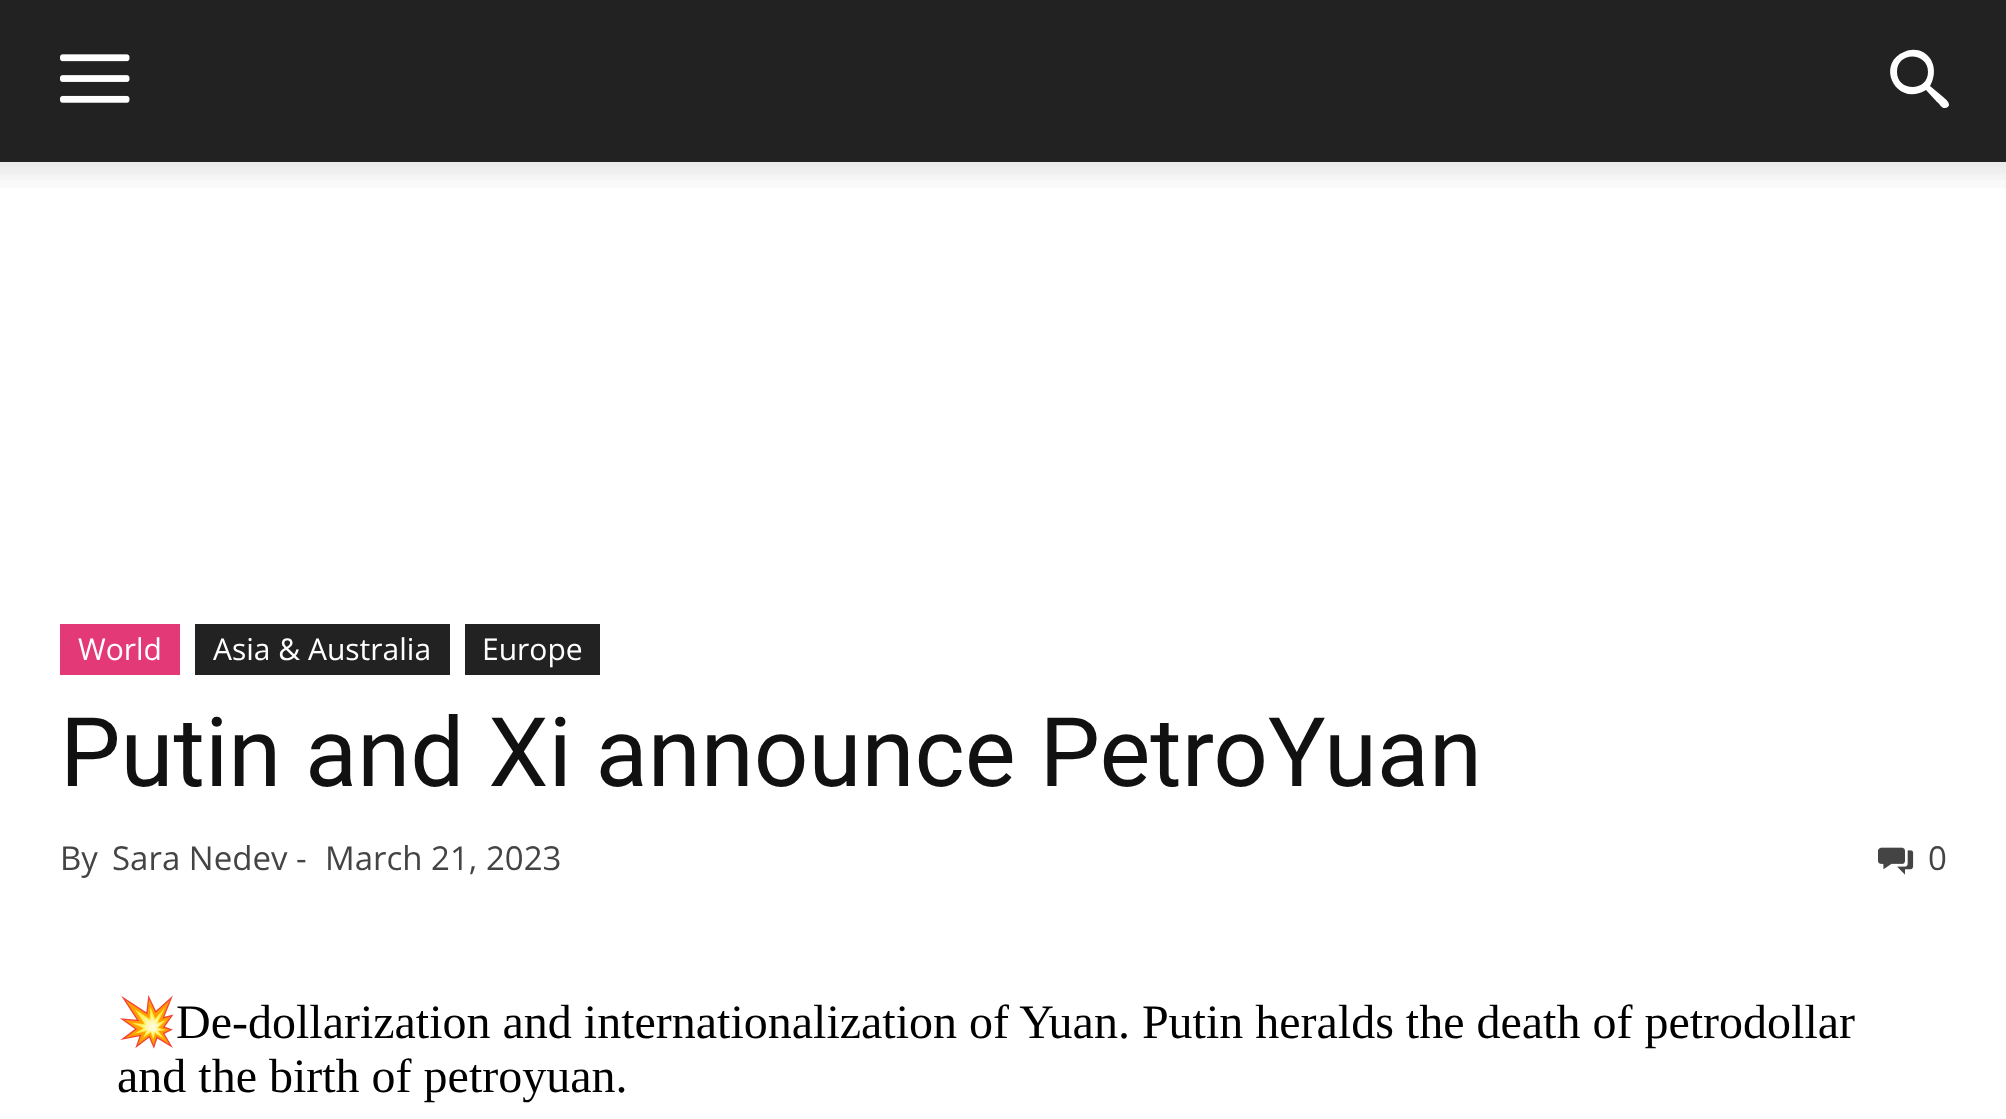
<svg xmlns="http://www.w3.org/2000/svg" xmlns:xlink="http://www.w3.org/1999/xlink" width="2006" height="1119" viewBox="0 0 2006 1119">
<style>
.cls-1{font:30px Open Sans;fill:#ffffff}
.cls-2{font:96px Roboto;fill:#111111}
.cls-3{font:33px Open Sans;fill:#444444}
.cls-4{font:48px Noto Color Emoji;fill:#000000}
.cls-5{font:48px Liberation Serif;fill:#000000}
</style>
<rect width="100%" height="100%" fill="#ffffff"/>
<rect fill="#222222" x="0" y="0" width="2006" height="162"/>
<image xlink:href="image0.png" x="60" y="54" width="70" height="49"/>
<path fill="#ffffff" d="M1928 72C1928 92 1897 92 1897 72C1897 51 1928 52 1928 72ZM1949 105C1949 101 1944 98 1942 96L1930 86C1937 74 1935 59 1923 52C1917 49 1910 49 1904 52C1875 64 1896 108 1926 90L1937 102C1939 103 1942 109 1945 108C1947 108 1949 106 1949 105Z"/>
<image xlink:href="image1.png" x="0" y="162" width="2006" height="26"/>
<rect fill="#e33a77" x="60" y="624" width="120" height="51"/>
<rect fill="#222222" x="195" y="624" width="255" height="51"/>
<rect fill="#222222" x="465" y="624" width="135" height="51"/>
<image xlink:href="image2.png" x="1878" y="847" width="36" height="28"/>
<text class="cls-1" x="78" y="660">World</text>
<text class="cls-1" x="213" y="660">Asia &amp; Australia</text>
<text class="cls-1" x="482" y="660">Europe</text>
<text class="cls-2" x="60" y="786">Putin and Xi announce PetroYuan</text>
<text class="cls-3" x="60" y="870">By</text>
<text class="cls-3" x="112" y="870">Sara Nedev -</text>
<text class="cls-3" x="325" y="870">March 21, 2023</text>
<text class="cls-3" x="1928" y="870">0</text>
<text class="cls-4" x="117" y="1038">💥</text>
<text class="cls-5" x="176" y="1038">De-dollarization and internationalization of Yuan. Putin heralds the death of petrodollar</text>
<text class="cls-5" x="117" y="1092">and the birth of petroyuan.</text>
</svg>
